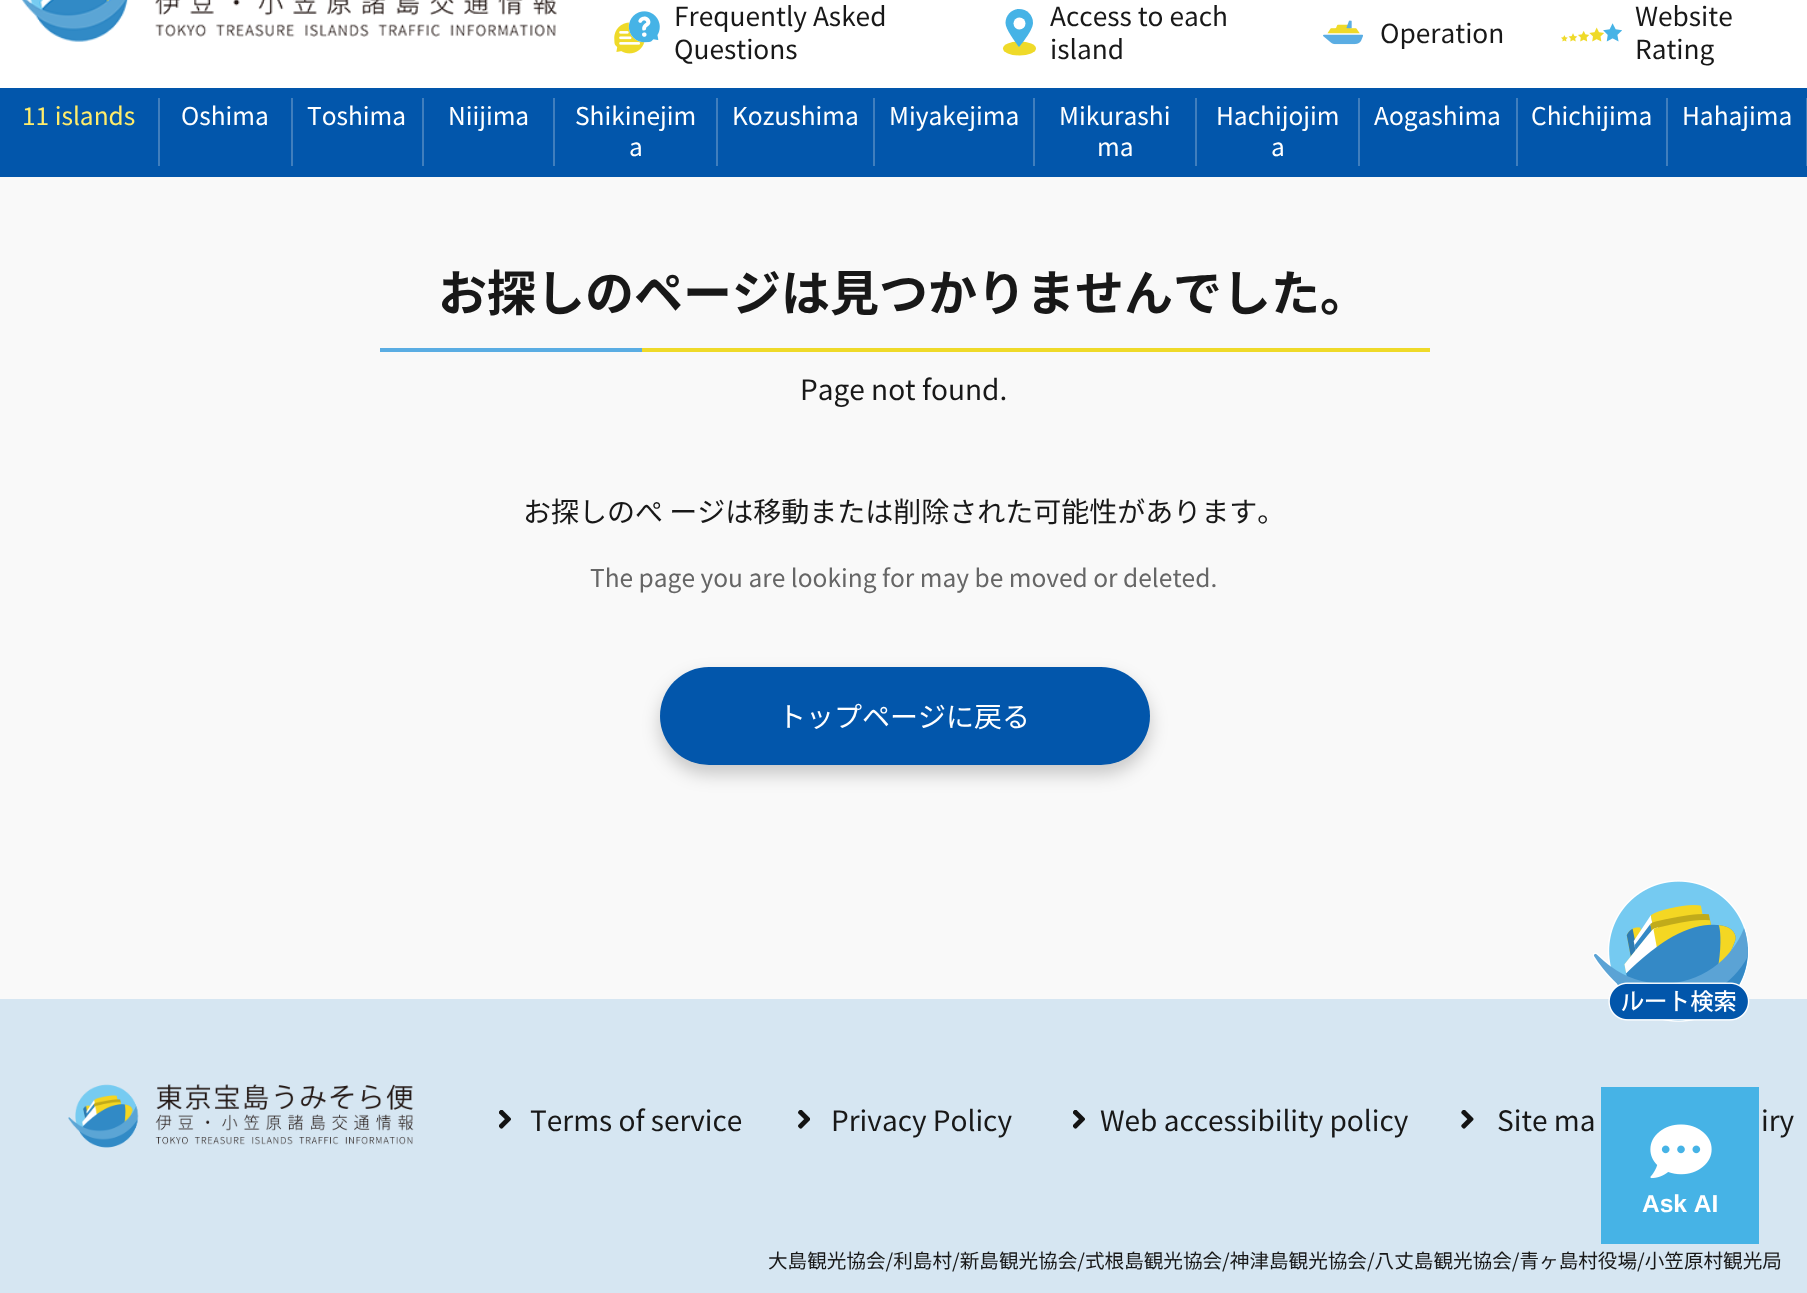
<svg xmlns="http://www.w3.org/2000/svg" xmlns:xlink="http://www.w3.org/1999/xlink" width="1807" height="1293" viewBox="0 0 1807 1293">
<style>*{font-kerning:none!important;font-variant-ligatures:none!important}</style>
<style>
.cls-1{font:26.25px Noto Sans JP;fill:#181818}
.cls-2{font:24.5px Noto Sans JP;fill:#ffec6b}
.cls-3{font:24.5px Noto Sans JP;fill:#ffffff}
.cls-4{font:bold 49px Noto Sans JP;fill:#181818}
.cls-5{font:28px Noto Sans JP;fill:#181818}
.cls-6{font:24.5px Noto Sans JP;fill:#666666}
.cls-7{font:28px Noto Sans JP;fill:#ffffff}
.cls-8{font:19.6px Noto Sans JP;fill:#181818}
.cls-9{font:bold 24.5px Liberation Sans;fill:#ffffff}
</style>
<rect width="100%" height="100%" fill="#ffffff"/>
<image xlink:href="image0.png" x="21" y="0" width="536" height="42"/>
<image xlink:href="image1.png" x="614" y="11" width="46" height="43"/>
<ellipse fill="#efda29" cx="1019.5" cy="48.5" rx="16.5" ry="7"/>
<path fill="#46b3e6" d="M1033 23C1033 30.5 1019 47 1019 47C1019 47 1005.5 30 1005.5 23C1005.5 15.5 1011.5 9 1019 9C1027 9 1033 15 1033 23Z"/>
<circle fill="#ffffff" cx="1019.5" cy="23.5" r="6"/>
<image xlink:href="image2.png" x="1323" y="20" width="40" height="25"/>
<image xlink:href="image3.png" x="1561" y="23" width="61" height="19"/>
<rect fill="#0256ab" x="0" y="88" width="1807" height="89"/>
<rect fill="#407ebd" x="158" y="98" width="2" height="68"/>
<rect fill="#407ebd" x="291" y="98" width="2" height="68"/>
<rect fill="#407ebd" x="422" y="98" width="2" height="68"/>
<rect fill="#407ebd" x="553" y="98" width="2" height="68"/>
<rect fill="#407ebd" x="716" y="98" width="2" height="68"/>
<rect fill="#407ebd" x="873" y="98" width="2" height="68"/>
<rect fill="#407ebd" x="1033" y="98" width="2" height="68"/>
<rect fill="#407ebd" x="1195" y="98" width="2" height="68"/>
<rect fill="#407ebd" x="1358" y="98" width="2" height="68"/>
<rect fill="#407ebd" x="1516" y="98" width="2" height="68"/>
<rect fill="#407ebd" x="1666" y="98" width="2" height="68"/>
<rect fill="#407ebd" x="1806" y="98" width="1" height="68"/>
<rect fill="#f9f9f9" x="0" y="177" width="1807" height="822"/>
<rect fill="#5aade3" x="380" y="348" width="262" height="4"/>
<rect fill="#efda29" x="642" y="348" width="788" height="4"/>
<rect fill="#000000" fill-opacity="0.2" filter="blur(9px)" x="660" y="676" width="490" height="98" rx="49"/>
<rect fill="#0256ab" x="660" y="667" width="490" height="98" rx="49"/>
<rect fill="#d6e6f2" x="0" y="999" width="1807" height="294"/>
<image xlink:href="image4.png" x="1593" y="880" width="157" height="142"/>
<image xlink:href="image5.png" x="68" y="1084" width="346" height="64"/>
<image xlink:href="image6.png" x="499" y="1110" width="12" height="19"/>
<image xlink:href="image7.png" x="798" y="1110" width="12" height="19"/>
<image xlink:href="image6.png" x="1073" y="1110" width="12" height="19"/>
<image xlink:href="image8.png" x="1461" y="1110" width="13" height="19"/>
<rect fill="#46b3e6" x="1601" y="1087" width="158" height="157"/>
<image xlink:href="image9.png" x="1650" y="1124" width="62" height="55"/>
<text class="cls-1"><tspan x="674" y="26">Frequently Asked</tspan><tspan x="674" y="59">Questions</tspan></text>
<text class="cls-1"><tspan x="1050" y="26">Access to each</tspan><tspan x="1050" y="59">island</tspan></text>
<text class="cls-1" x="1380" y="43">Operation</text>
<text class="cls-1"><tspan x="1635" y="26">Website</tspan><tspan x="1635" y="59">Rating</tspan></text>
<text class="cls-2" x="22" y="125">11 islands</text>
<text class="cls-3" x="181" y="125">Oshima</text>
<text class="cls-3" x="307" y="125">Toshima</text>
<text class="cls-3" x="448" y="125">Niijima</text>
<text class="cls-3" x="575" y="125">Shikinejim</text>
<text class="cls-3" x="629" y="156">a</text>
<text class="cls-3" x="732" y="125">Kozushima</text>
<text class="cls-3" x="889" y="125">Miyakejima</text>
<text class="cls-3" x="1059" y="125">Mikurashi</text>
<text class="cls-3" x="1097" y="156">ma</text>
<text class="cls-3" x="1216" y="125">Hachijojim</text>
<text class="cls-3" x="1271" y="156">a</text>
<text class="cls-3" x="1374" y="125">Aogashima</text>
<text class="cls-3" x="1531" y="125">Chichijima</text>
<text class="cls-3" x="1682" y="125">Hahajima</text>
<text class="cls-4" x="438" y="311">お探しのページは見つかりませんでした。</text>
<text class="cls-5" x="800" y="400">Page not found.</text>
<text class="cls-5" x="523" y="522">お探しのぺ ージは移動または削除された可能性があります。</text>
<text class="cls-6" x="590" y="587">The page you are looking for may be moved or deleted.</text>
<text class="cls-7" x="778" y="727">トップページに戻る</text>
<text class="cls-5" x="530" y="1131">Terms of service</text>
<text class="cls-5" x="831" y="1131">Privacy Policy</text>
<text class="cls-5" x="1100" y="1131">Web accessibility policy</text>
<text class="cls-5" x="1497" y="1131">Site ma</text>
<text class="cls-5" x="1761" y="1131">iry</text>
<text class="cls-8" x="768" y="1268">大島観光協会/利島村/新島観光協会/式根島観光協会/神津島観光協会/八丈島観光協会/青ヶ島村役場/小笠原村観光局</text>
<text class="cls-9" x="1642" y="1212">Ask AI</text>
</svg>
